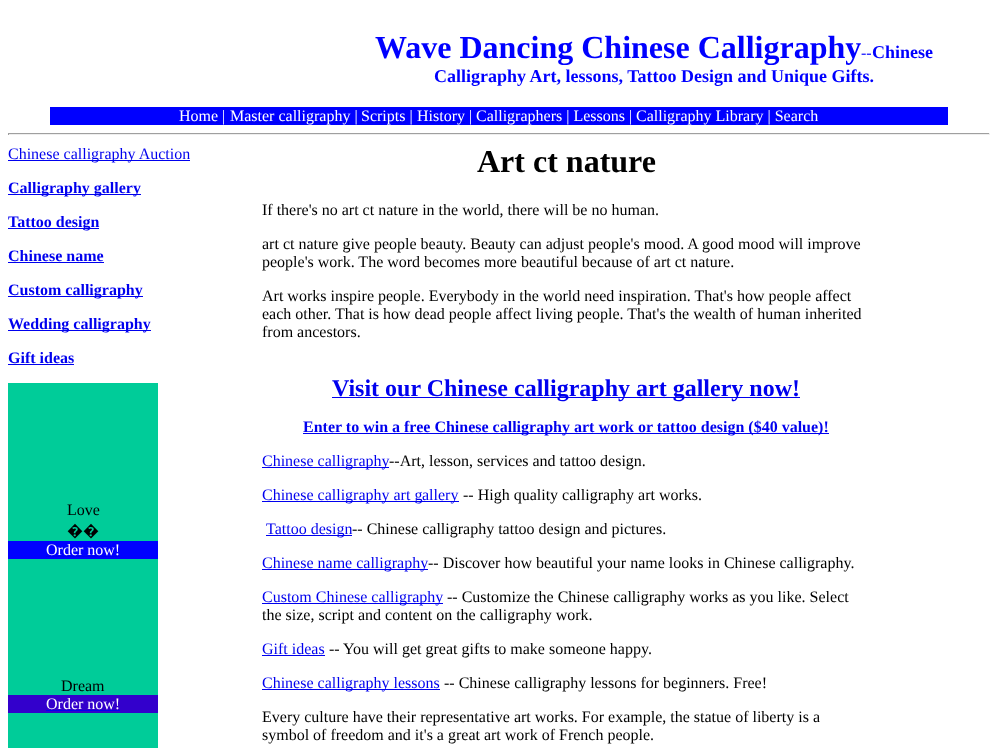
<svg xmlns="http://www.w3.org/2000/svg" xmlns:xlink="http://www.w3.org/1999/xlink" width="998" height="748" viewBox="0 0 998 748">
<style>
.cls-1{font:bold 32px Liberation Serif;fill:#0000ff}
.cls-2{font:16px Liberation Serif;fill:#0000ff}
.cls-3{font:bold 18px Liberation Serif;fill:#0000ff}
.cls-4{font:16px Liberation Serif;fill:#ffffff}
.cls-5{font:16px Liberation Serif;fill:#0000ee}
.cls-6{font:bold 16px Liberation Serif;fill:#0000ee}
.cls-7{font:16px Liberation Serif;fill:#000000}
.cls-8{font:16px Noto Sans;fill:#000000}
.cls-9{font:bold 32px Liberation Serif;fill:#000000}
.cls-10{font:bold 24px Liberation Serif;fill:#0000ee}
</style>
<rect width="100%" height="100%" fill="#ffffff"/>
<rect fill="#0000ff" x="50" y="107" width="898" height="18"/>
<rect fill="#0000ee" x="179" y="122" width="40" height="1"/>
<rect fill="#0000ee" x="230" y="122" width="120" height="1"/>
<rect fill="#0000ee" x="361" y="122" width="45" height="1"/>
<rect fill="#0000ee" x="417" y="122" width="48" height="1"/>
<rect fill="#0000ee" x="476" y="122" width="86" height="1"/>
<rect fill="#0000ee" x="636" y="122" width="128" height="1"/>
<rect fill="#9f9f9f" x="8" y="133" width="982" height="1"/>
<rect fill="#eeeeee" x="989" y="133" width="1" height="2"/>
<rect fill="#eeeeee" x="8" y="134" width="982" height="1"/>
<rect fill="#9f9f9f" x="8" y="133" width="1" height="2"/>
<rect fill="#0000ee" x="8" y="160" width="182" height="1"/>
<rect fill="#0000ee" x="8" y="194" width="133" height="1"/>
<rect fill="#0000ee" x="8" y="228" width="91" height="1"/>
<rect fill="#0000ee" x="8" y="262" width="96" height="1"/>
<rect fill="#0000ee" x="8" y="296" width="135" height="1"/>
<rect fill="#0000ee" x="8" y="330" width="143" height="1"/>
<rect fill="#0000ee" x="8" y="364" width="66" height="1"/>
<rect fill="#00cc99" x="8" y="383" width="150" height="158"/>
<rect fill="#0000ff" x="8" y="541" width="150" height="18"/>
<rect fill="#0000ee" x="46" y="556" width="74" height="1"/>
<rect fill="#00cc99" x="8" y="559" width="150" height="136"/>
<rect fill="#3300cc" x="8" y="695" width="150" height="18"/>
<rect fill="#0000ee" x="46" y="710" width="74" height="1"/>
<rect fill="#00cc99" x="8" y="713" width="150" height="35"/>
<rect fill="#0000ee" x="332" y="397" width="468" height="1"/>
<rect fill="#0000ee" x="303" y="433" width="526" height="1"/>
<rect fill="#0000ee" x="262" y="467" width="127" height="1"/>
<rect fill="#0000ee" x="262" y="501" width="160" height="1"/>
<rect fill="#0000ee" x="422" y="501" width="37" height="1"/>
<rect fill="#0000ee" x="266" y="535" width="86" height="1"/>
<rect fill="#0000ee" x="262" y="569" width="166" height="1"/>
<rect fill="#0000ee" x="262" y="603" width="181" height="1"/>
<rect fill="#0000ee" x="262" y="655" width="63" height="1"/>
<rect fill="#0000ee" x="262" y="689" width="178" height="1"/>
<text class="cls-1" x="375" y="58">Wave Dancing Chinese Calligraphy</text>
<text class="cls-2" x="861" y="58">--</text>
<text class="cls-3" x="872" y="58">Chinese</text>
<text class="cls-3" x="434" y="82">Calligraphy Art, lessons, Tattoo Design and Unique Gifts.</text>
<text class="cls-4" x="179" y="121">Home |</text>
<text class="cls-4" x="230" y="121">Master calligraphy |</text>
<text class="cls-4" x="361" y="121">Scripts |</text>
<text class="cls-4" x="417" y="121">History |</text>
<text class="cls-4" x="476" y="121">Calligraphers | Lessons |</text>
<rect fill="#0000ee" x="574" y="122" width="51" height="1"/>
<text class="cls-4" x="636" y="121">Calligraphy Library | Search</text>
<rect fill="#0000ee" x="775" y="122" width="44" height="1"/>
<text class="cls-5" x="8" y="159">Chinese calligraphy Auction</text>
<text class="cls-6" x="8" y="193">Calligraphy gallery</text>
<text class="cls-6" x="8" y="227">Tattoo design</text>
<text class="cls-6" x="8" y="261">Chinese name</text>
<text class="cls-6" x="8" y="295">Custom calligraphy</text>
<text class="cls-6" x="8" y="329">Wedding calligraphy</text>
<text class="cls-6" x="8" y="363">Gift ideas</text>
<text class="cls-7" x="67" y="515">Love</text>
<text class="cls-8" x="67" y="536">��</text>
<text class="cls-4" x="46" y="555">Order now!</text>
<text class="cls-7" x="61" y="691">Dream</text>
<text class="cls-4" x="46" y="709">Order now!</text>
<text class="cls-9" x="477" y="172">Art ct nature</text>
<text class="cls-7" x="262" y="215">If there's no art ct nature in the world, there will be no human.</text>
<text class="cls-7"><tspan x="262" y="249">art ct nature give people beauty. Beauty can adjust people's mood. A good mood will improve</tspan><tspan x="262" y="267">people's work. The word becomes more beautiful because of art ct nature.</tspan></text>
<text class="cls-7"><tspan x="262" y="301">Art works inspire people. Everybody in the world need inspiration. That's how people affect</tspan><tspan x="262" y="319">each other. That is how dead people affect living people. That's the wealth of human inherited</tspan><tspan x="262" y="337">from ancestors.</tspan></text>
<text class="cls-10" x="332" y="396">Visit our Chinese calligraphy art gallery now!</text>
<text class="cls-6" x="303" y="432">Enter to win a free Chinese calligraphy art work or tattoo design ($40 value)!</text>
<text class="cls-5" x="262" y="466">Chinese calligraphy</text>
<text class="cls-7" x="389" y="466">--Art, lesson, services and tattoo design.</text>
<text class="cls-5" x="262" y="500">Chinese calligraphy art g</text>
<text class="cls-5" x="422" y="500">allery</text>
<text class="cls-7" x="463" y="500">-- High quality calligraphy art works.</text>
<text class="cls-5" x="266" y="534">Tattoo design</text>
<text class="cls-7" x="352" y="534">-- Chinese calligraphy tattoo design and pictures.</text>
<text class="cls-5" x="262" y="568">Chinese name calligraphy</text>
<text class="cls-7" x="428" y="568">-- Discover how beautiful your name looks in Chinese calligraphy.</text>
<text class="cls-5" x="262" y="602">Custom Chinese calligraphy</text>
<text class="cls-7" x="447" y="602">-- Customize the Chinese calligraphy works as you like. Select</text>
<text class="cls-7" x="262" y="620">the size, script and content on the calligraphy work.</text>
<text class="cls-5" x="262" y="654">Gift ideas</text>
<text class="cls-7" x="329" y="654">-- You will get great gifts to make someone happy.</text>
<text class="cls-5" x="262" y="688">Chinese calligraphy lessons</text>
<text class="cls-7" x="444" y="688">-- Chinese calligraphy lessons for beginners. Free!</text>
<text class="cls-7"><tspan x="262" y="722">Every culture have their representative art works. For example, the statue of liberty is a</tspan><tspan x="262" y="740">symbol of freedom and it's a great art work of French people.</tspan></text>
</svg>
